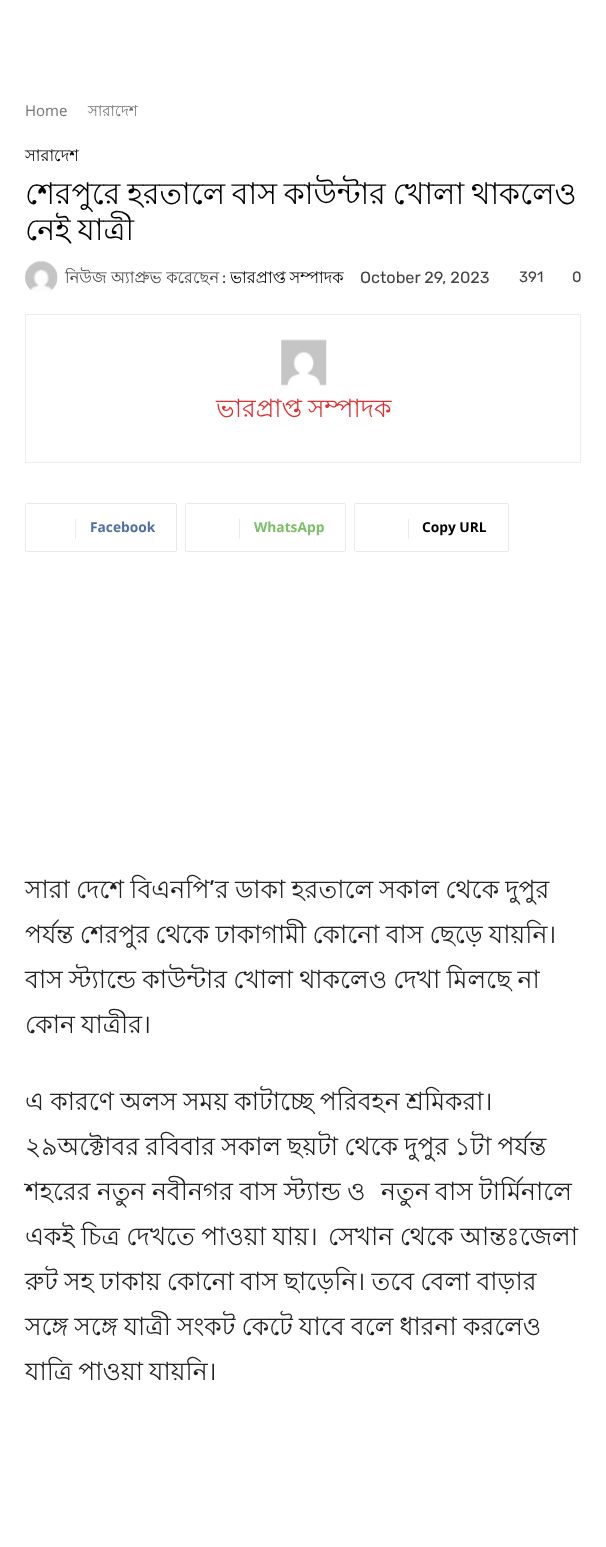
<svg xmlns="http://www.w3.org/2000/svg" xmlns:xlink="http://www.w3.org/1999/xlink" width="606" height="1547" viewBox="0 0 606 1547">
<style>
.cls-1{font:15px Open Sans;fill:#747474}
.cls-2{font:15px Lohit Bengali;fill:#747474}
.cls-3{font:16.25px Lohit Bengali;fill:#000000}
.cls-4{font:30px Lohit Bengali;fill:#000000}
.cls-5{font:16.25px Lohit Bengali;fill:#444444}
.cls-6{font:16.25px Rubik;fill:#444444}
.cls-7{font:15px Rubik;fill:#444444}
.cls-8{font:25px Lohit Bengali;fill:#dd3333}
.cls-9{font:bold 13.75px Open Sans;fill:#516eab}
.cls-10{font:bold 13.75px Open Sans;fill:#7bbf6a}
.cls-11{font:bold 13.75px Open Sans;fill:#000000}
.cls-12{font:25px Lohit Bengali;fill:#222222}
.cls-13{font:25px Rubik;fill:#222222}
</style>
<rect width="100%" height="100%" fill="#ffffff"/>
<image xlink:href="image0.png" x="25" y="261" width="33" height="30"/>
<rect fill="none" stroke="#ededed" x="25.5" y="314.5" width="555" height="148"/>
<image xlink:href="image1.png" x="281" y="339" width="46" height="47"/>
<rect fill="#e9e9e9" x="25" y="504" width="1" height="47"/>
<rect fill="#e9e9e9" x="26" y="503" width="150" height="1"/>
<rect fill="#e9e9e9" x="176" y="504" width="1" height="47"/>
<rect fill="#e9e9e9" x="26" y="551" width="150" height="1"/>
<rect fill="#ebebeb" x="75" y="519" width="1" height="20"/>
<rect fill="#e9e9e9" x="185" y="504" width="1" height="47"/>
<rect fill="#e9e9e9" x="186" y="503" width="159" height="1"/>
<rect fill="#e9e9e9" x="345" y="504" width="1" height="47"/>
<rect fill="#e9e9e9" x="186" y="551" width="159" height="1"/>
<rect fill="#ebebeb" x="239" y="519" width="1" height="20"/>
<rect fill="#e9e9e9" x="354" y="504" width="1" height="47"/>
<rect fill="#e9e9e9" x="355" y="503" width="153" height="1"/>
<rect fill="#e9e9e9" x="508" y="504" width="1" height="47"/>
<rect fill="#e9e9e9" x="355" y="551" width="153" height="1"/>
<rect fill="#ebebeb" x="408" y="519" width="1" height="20"/>
<text class="cls-1" x="25" y="116">Home</text>
<text class="cls-2" x="88" y="116">সারাদেশ</text>
<text class="cls-3" x="25" y="161">সারাদেশ</text>
<text class="cls-4"><tspan x="25" y="204" word-spacing="-1.5">শেরপুরে হরতালে বাস কাউন্টার খোলা থাকলেও</tspan><tspan x="25" y="240" word-spacing="-1.5">নেই যাত্রী</tspan></text>
<text class="cls-5" x="65" y="283">নিউজ অ্যাপ্রুভ করেছেন</text>
<text class="cls-6" x="222" y="283">:</text>
<text class="cls-3" x="230" y="283" word-spacing="-1">ভারপ্রাপ্ত সম্পাদক</text>
<text class="cls-6" x="360" y="283">October 29, 2023</text>
<text class="cls-7" x="519" y="282">391</text>
<text class="cls-7" x="572" y="282">0</text>
<text class="cls-8" x="216" y="417" word-spacing="-1">ভারপ্রাপ্ত সম্পাদক</text>
<text class="cls-9" x="90" y="532">Facebook</text>
<text class="cls-10" x="254" y="532">WhatsApp</text>
<text class="cls-11" x="422" y="532">Copy URL</text>
<text class="cls-12" x="25" y="898" word-spacing="-0.75">সারা দেশে বিএনপি</text>
<text class="cls-13" x="209" y="898">’</text>
<text class="cls-12" x="215" y="898" word-spacing="-0.75">র ডাকা হরতালে সকাল থেকে দুপুর</text>
<text class="cls-12"><tspan x="25" y="943" word-spacing="-0.75">পর্যন্ত শেরপুর থেকে ঢাকাগামী কোনো বাস ছেড়ে যায়নি।</tspan><tspan x="25" y="988" word-spacing="-0.75">বাস স্ট্যান্ডে কাউন্টার খোলা থাকলেও দেখা মিলছে না</tspan><tspan x="25" y="1033" word-spacing="-0.75">কোন যাত্রীর।</tspan></text>
<text class="cls-12"><tspan x="25" y="1110" word-spacing="-0.75">এ কারণে অলস সময় কাটাচ্ছে পরিবহন শ্রমিকরা।</tspan><tspan x="25" y="1155" word-spacing="-0.75">২৯অক্টোবর রবিবার সকাল ছয়টা থেকে দুপুর ১টা পর্যন্ত</tspan><tspan x="25" y="1200" word-spacing="-0.5">শহরের নতুন নবীনগর বাস স্ট্যান্ড ও</tspan></text>
<text class="cls-12" x="381" y="1200">নতুন</text>
<text class="cls-12" x="435" y="1200" word-spacing="-0.5">বাস টার্মিনালে</text>
<text class="cls-12" x="25" y="1245" word-spacing="-0.5">একই চিত্র দেখতে পাওয়া যায়।</text>
<text class="cls-12" x="328" y="1245" word-spacing="-0.5">সেখান থেকে আন্তঃজেলা</text>
<text class="cls-12"><tspan x="25" y="1290" word-spacing="-0.75">রুট সহ ঢাকায় কোনো বাস ছাড়েনি। তবে বেলা বাড়ার</tspan><tspan x="25" y="1335" word-spacing="-0.75">সঙ্গে সঙ্গে যাত্রী সংকট কেটে যাবে বলে ধারনা করলেও</tspan><tspan x="25" y="1380" word-spacing="-0.75">যাত্রি পাওয়া যায়নি।</tspan></text>
</svg>
